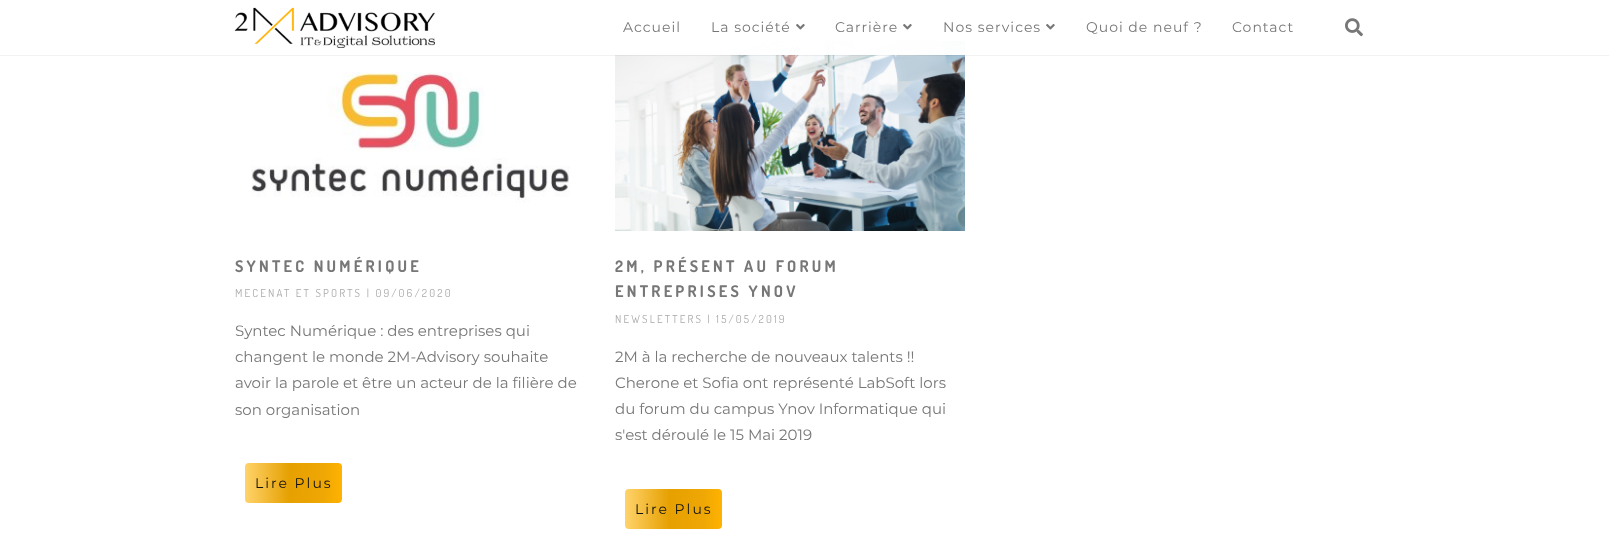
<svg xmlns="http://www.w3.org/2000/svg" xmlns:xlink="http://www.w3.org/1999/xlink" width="1609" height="555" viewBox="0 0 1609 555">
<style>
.cls-1{font:100 14px Montserrat;letter-spacing:1px;fill:#777777}
.cls-2{font:bold 16px Dosis;letter-spacing:3.25px;fill:#777777}
.cls-3{font:11px Dosis;letter-spacing:2.2px;fill:#aaaaaa}
.cls-4{font:100 15px Montserrat;fill:#777777}
.cls-5{font:100 14px Montserrat;letter-spacing:2px;fill:#111111}
</style>
<defs>
<linearGradient id="g1" gradientUnits="userSpaceOnUse" x1="245" y1="483" x2="342" y2="483"><stop offset="0" stop-color="#ffd36b"/><stop offset="0.46" stop-color="#e6a000"/><stop offset="0.8" stop-color="#eea704"/><stop offset="1" stop-color="#ffb200"/></linearGradient>
<linearGradient id="g2" gradientUnits="userSpaceOnUse" x1="625" y1="509" x2="722" y2="509"><stop offset="0" stop-color="#ffd36b"/><stop offset="0.46" stop-color="#e6a000"/><stop offset="0.8" stop-color="#eea704"/><stop offset="1" stop-color="#ffb200"/></linearGradient>
</defs>
<rect width="100%" height="100%" fill="#ffffff"/>
<image xlink:href="image4.png" x="615" y="41" width="350" height="190"/>
<rect fill="#000000" fill-opacity="0.05" x="0" y="55" width="1609" height="1"/>
<rect fill="#ffffff" fill-opacity="0.97" x="615" y="41" width="350" height="14"/>
<image xlink:href="image0.png" x="234" y="7" width="201" height="41"/>
<image xlink:href="image1.png" x="796" y="24" width="9" height="6"/>
<image xlink:href="image1.png" x="903" y="24" width="9" height="6"/>
<image xlink:href="image1.png" x="1046" y="24" width="9" height="6"/>
<image xlink:href="image2.png" x="1345" y="18" width="18" height="19"/>
<image xlink:href="image3.png" x="251" y="72" width="319" height="131"/>
<rect fill="url(#g1)" x="245" y="463" width="97" height="40" rx="4"/>
<rect fill="url(#g2)" x="625" y="489" width="97" height="40" rx="4"/>
<text class="cls-1" x="623" y="32">Accueil</text>
<text class="cls-1" x="711" y="32">La société</text>
<text class="cls-1" x="835" y="32">Carrière</text>
<text class="cls-1" x="943" y="32">Nos services</text>
<text class="cls-1" x="1086" y="32">Quoi de neuf ?</text>
<text class="cls-1" x="1232" y="32">Contact</text>
<text class="cls-2" x="235" y="272">SYNTEC NUMÉRIQUE</text>
<text class="cls-3" x="235" y="297">MECENAT ET SPORTS | 09/06/2020</text>
<text class="cls-4"><tspan x="235" y="336">Syntec Numérique : des entreprises qui</tspan><tspan x="235" y="362">changent le monde 2M-Advisory souhaite</tspan><tspan x="235" y="388">avoir la parole et être un acteur de la filière de</tspan><tspan x="235" y="415">son organisation</tspan></text>
<text class="cls-5" x="255" y="488">Lire Plus</text>
<text class="cls-2"><tspan x="615" y="272">2M, PRÉSENT AU FORUM</tspan><tspan x="615" y="297">ENTREPRISES YNOV</tspan></text>
<text class="cls-3" x="615" y="323">NEWSLETTERS | 15/05/2019</text>
<text class="cls-4"><tspan x="615" y="362">2M à la recherche de nouveaux talents !!</tspan><tspan x="615" y="388">Cherone et Sofia ont représenté LabSoft lors</tspan><tspan x="615" y="414">du forum du campus Ynov Informatique qui</tspan><tspan x="615" y="440">s'est déroulé le 15 Mai 2019</tspan></text>
<text class="cls-5" x="635" y="514">Lire Plus</text>
</svg>
